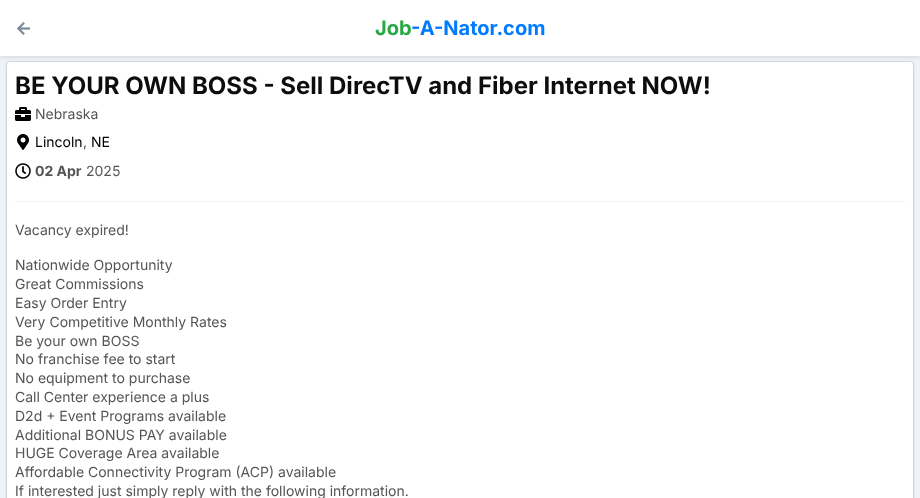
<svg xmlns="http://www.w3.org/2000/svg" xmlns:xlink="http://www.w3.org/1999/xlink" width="920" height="498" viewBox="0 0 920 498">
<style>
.cls-1{font:bold 20px Inter;fill:#28a745}
.cls-2{font:bold 20px Inter;fill:#007bff}
.cls-3{font:bold 24px Inter;fill:#0b0d0e}
.cls-4{font:14px Inter;fill:#555555}
.cls-5{font:14px Inter;fill:#000000}
.cls-6{font:bold 14px Inter;fill:#555555}
</style>
<rect width="100%" height="100%" fill="#eff2f6"/>
<rect fill="#051429" fill-opacity="0.08" filter="blur(1.5px)" x="6" y="63" width="908" height="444" rx="4"/>
<rect fill="#ffffff" stroke="#d0d6dd" x="6.5" y="61.5" width="907" height="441" rx="3.5"/>
<rect fill="#051429" fill-opacity="0.08" filter="blur(1.5px)" x="0" y="2" width="920" height="56"/>
<rect fill="#ffffff" x="0" y="0" width="920" height="56"/>
<image xlink:href="image0.png" x="17" y="22" width="14" height="13"/>
<rect fill="#eff2f6" x="15" y="201" width="890" height="1"/>
<image xlink:href="image1.png" x="15" y="107" width="16" height="14"/>
<image xlink:href="image2.png" x="17" y="134" width="12" height="16"/>
<image xlink:href="image3.png" x="15" y="163" width="16" height="16"/>
<text class="cls-1" x="375" y="35">Job</text>
<text class="cls-2" x="411" y="35">-A-Nator.com</text>
<text class="cls-3" x="15" y="94">BE YOUR OWN BOSS - Sell DirecTV and Fiber Internet NOW!</text>
<text class="cls-4" x="35" y="119">Nebraska</text>
<text class="cls-5" x="35" y="147">Lincoln</text>
<text class="cls-5" x="91" y="147">NE</text>
<text class="cls-4" x="83" y="147">,</text>
<text class="cls-6" x="35" y="176">02 Apr</text>
<text class="cls-4" x="86" y="176">2025</text>
<text class="cls-4" x="15" y="235">Vacancy expired!</text>
<text class="cls-4"><tspan x="15" y="270">Nationwide Opportunity</tspan><tspan x="15" y="289">Great Commissions</tspan><tspan x="15" y="308">Easy Order Entry</tspan><tspan x="15" y="327">Very Competitive Monthly Rates</tspan><tspan x="15" y="346">Be your own BOSS</tspan><tspan x="15" y="364">No franchise fee to start</tspan><tspan x="15" y="383">No equipment to purchase</tspan><tspan x="15" y="402">Call Center experience a plus</tspan><tspan x="15" y="421">D2d + Event Programs available</tspan><tspan x="15" y="440">Additional BONUS PAY available</tspan><tspan x="15" y="458">HUGE Coverage Area available</tspan><tspan x="15" y="477">Affordable Connectivity Program (ACP) available</tspan><tspan x="15" y="496">If interested just simply reply with the following information.</tspan></text>
</svg>
